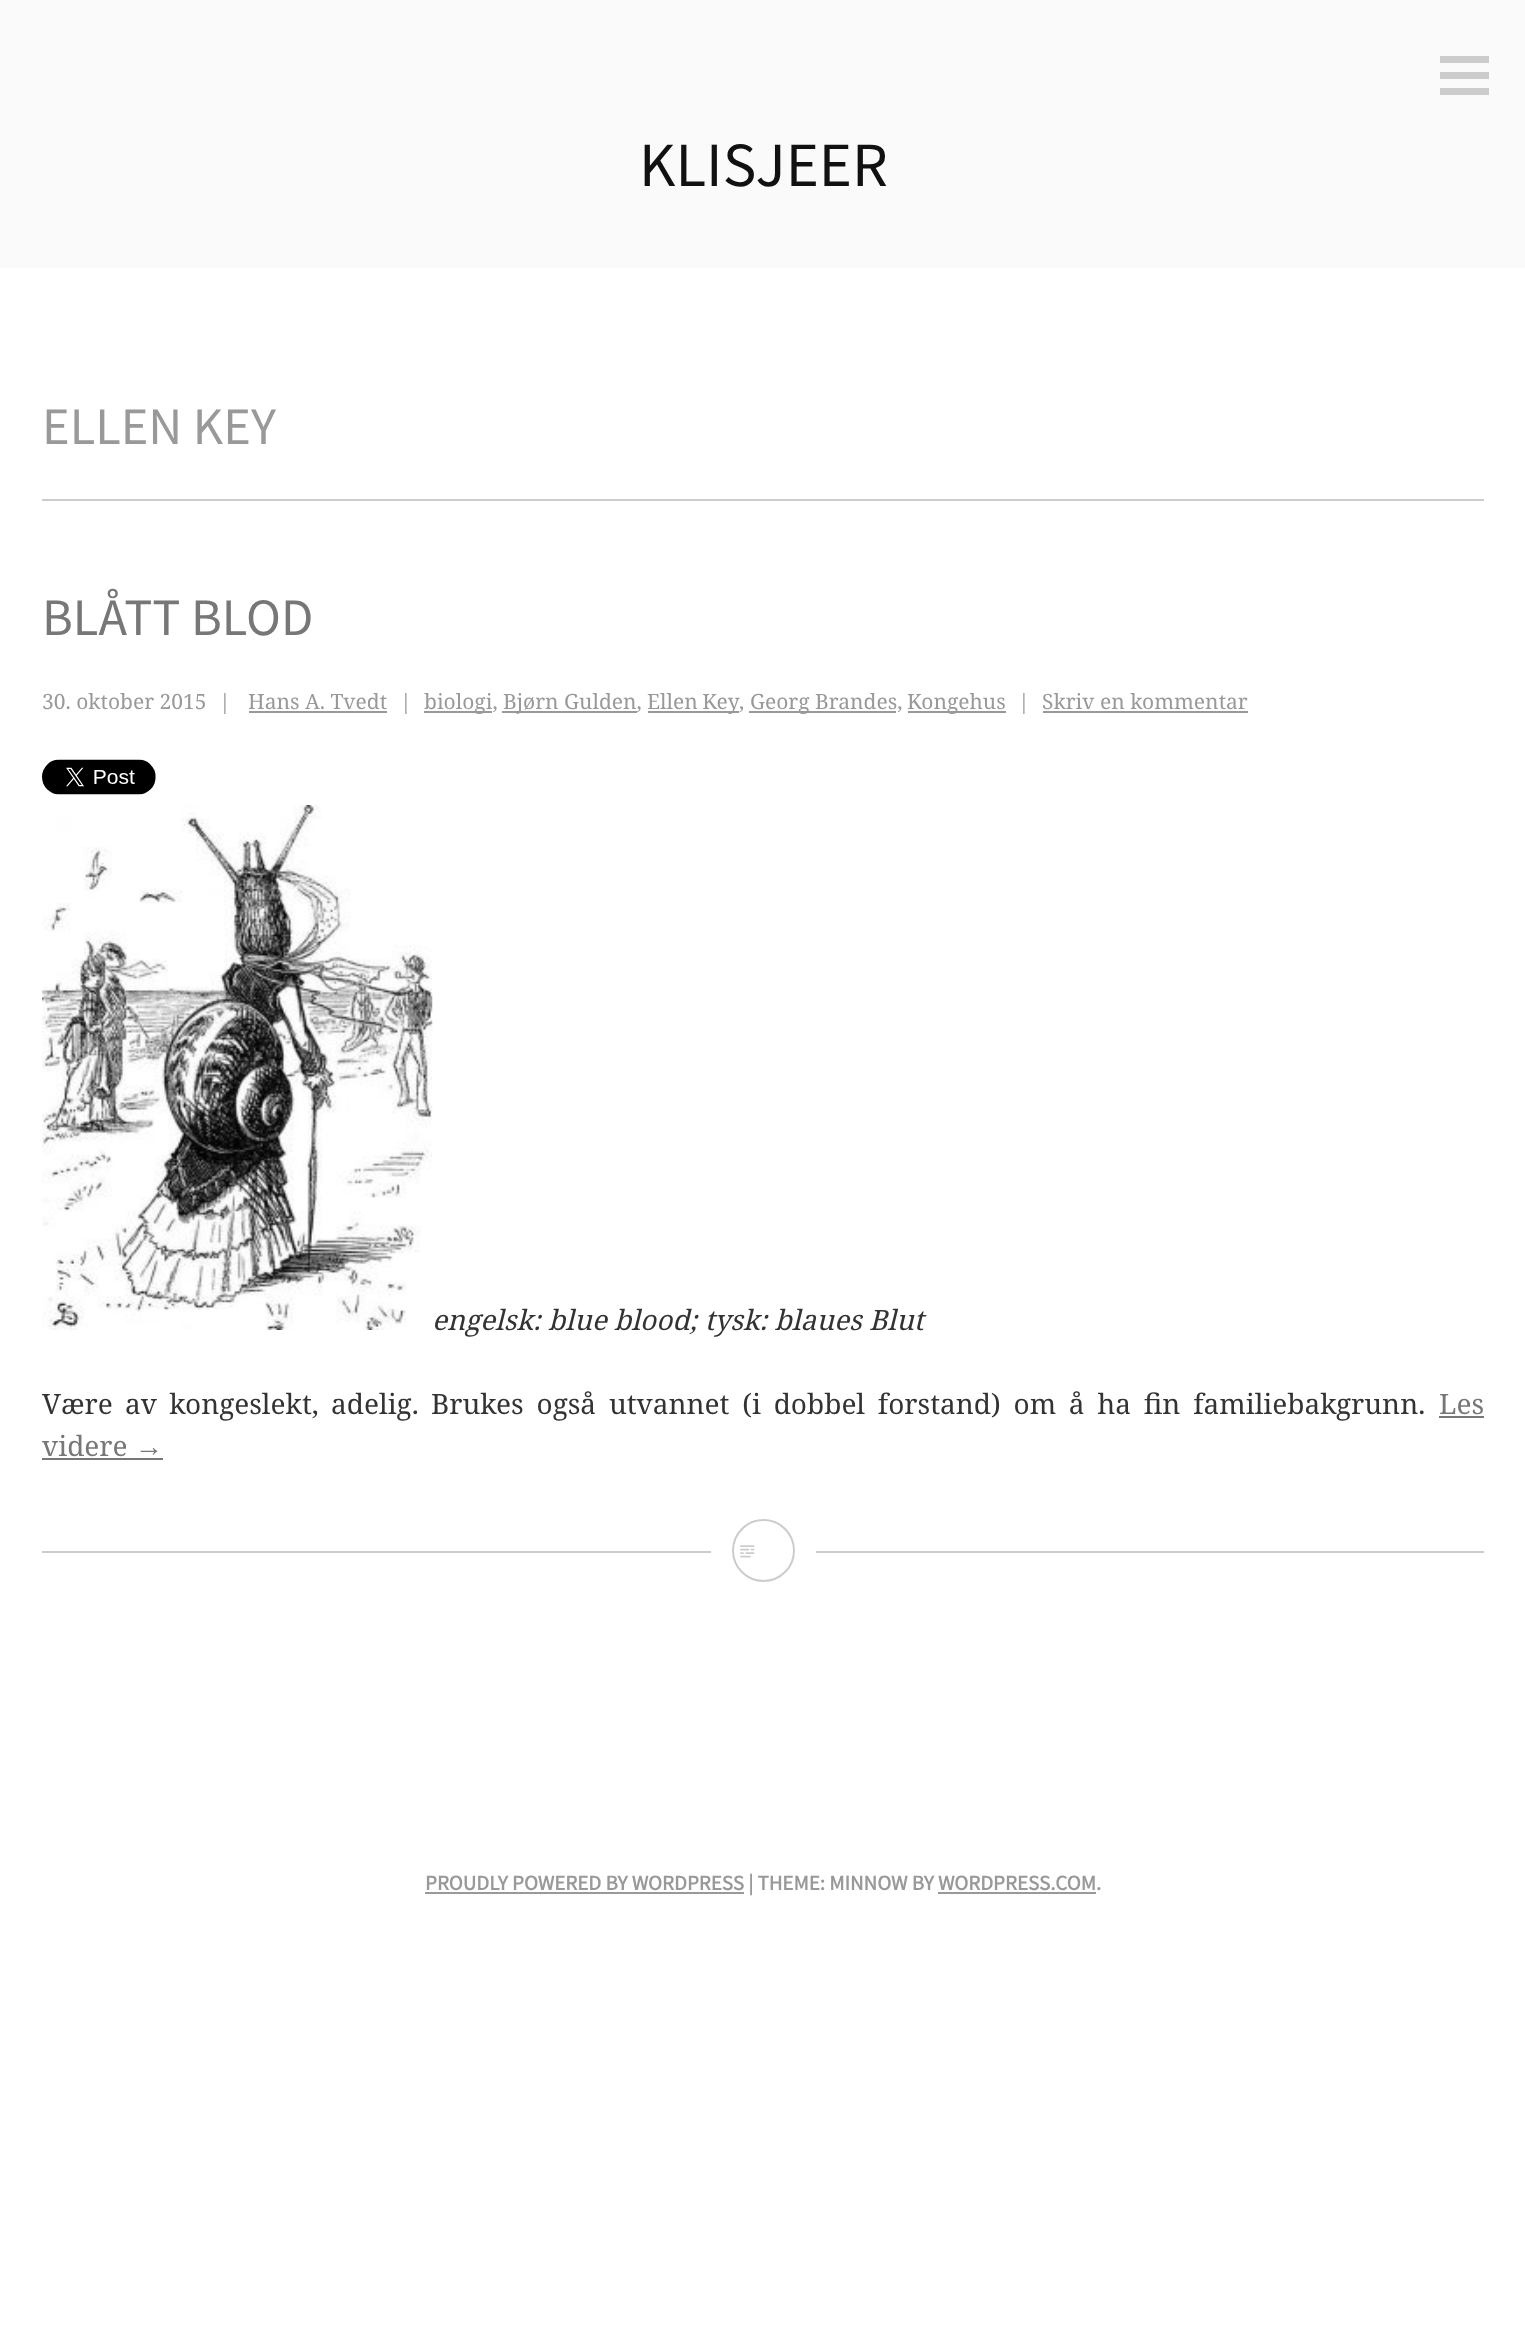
<svg xmlns="http://www.w3.org/2000/svg" xmlns:xlink="http://www.w3.org/1999/xlink" width="1525" height="2333" viewBox="0 0 1525 2333">
<style>
.cls-1{font:63px Source Sans Pro;fill:#111111}
.cls-2{font:52.5px Source Sans Pro;fill:#999999}
.cls-3{font:52.5px Source Sans Pro;fill:#777777}
.cls-4{font:21px Noto Serif;fill:#999999}
.cls-5{font:italic 28px Noto Serif;fill:#333333}
.cls-6{font:28px Noto Serif;fill:#333333}
.cls-7{font:28px Noto Serif;fill:#777777}
.cls-8{font:28px Liberation Serif;fill:#777777}
.cls-9{font:bold 21px Source Sans Pro;fill:#999999}
</style>
<rect width="100%" height="100%" fill="#ffffff"/>
<rect fill="#fafafa" x="0" y="0" width="1525" height="268"/>
<rect fill="#cccccc" x="1440" y="56" width="49" height="7"/>
<rect fill="#cccccc" x="1440" y="72" width="49" height="7"/>
<rect fill="#cccccc" x="1440" y="88" width="49" height="7"/>
<rect fill="#cccccc" x="42" y="499" width="1442" height="2"/>
<rect fill="#cccccc" x="42" y="1551" width="1442" height="2"/>
<rect fill="#999999" x="249" y="711" width="138" height="2"/>
<rect fill="#999999" x="424" y="711" width="68" height="2"/>
<rect fill="#999999" x="502" y="711" width="135" height="2"/>
<rect fill="#999999" x="648" y="711" width="91" height="2"/>
<rect fill="#999999" x="749" y="711" width="147" height="2"/>
<rect fill="#999999" x="908" y="711" width="98" height="2"/>
<rect fill="#999999" x="1043" y="711" width="205" height="2"/>
<image xlink:href="image0.png" x="42" y="759" width="114" height="36"/>
<image xlink:href="image1.png" x="42" y="805" width="391" height="525"/>
<rect fill="#777777" x="1439" y="1416" width="45" height="2"/>
<rect fill="#777777" x="42" y="1458" width="121" height="2"/>
<rect fill="#ffffff" x="711" y="1551" width="105" height="2"/>
<circle fill="none" stroke="#cccccc" stroke-width="2" cx="763.5" cy="1550.5" r="30.5"/>
<image xlink:href="image2.png" x="740" y="1545" width="15" height="13"/>
<rect fill="#999999" x="425" y="1892" width="319" height="2"/>
<rect fill="#999999" x="938" y="1892" width="158" height="2"/>
<text class="cls-1" x="639" y="186">KLISJEER</text>
<text class="cls-2" x="42" y="444">ELLEN KEY</text>
<text class="cls-3" x="42" y="635">BLÅTT BLOD</text>
<text class="cls-4" x="42" y="709">30. oktober 2015</text>
<text class="cls-4" x="219" y="709">|</text>
<text class="cls-4" x="248" y="709">Hans A. Tvedt</text>
<text class="cls-4" x="400" y="709">|</text>
<text class="cls-4" x="424" y="709">biologi,</text>
<text class="cls-4" x="503" y="709">Bjørn Gulden,</text>
<text class="cls-4" x="647" y="709" word-spacing="-1">Ellen Key</text>
<text class="cls-4" x="739" y="709">,</text>
<text class="cls-4" x="750" y="709">Georg Brandes,</text>
<text class="cls-4" x="907" y="709">Kongehus</text>
<text class="cls-4" x="1018" y="709">|</text>
<text class="cls-4" x="1042" y="709">Skriv en kommentar</text>
<text class="cls-5" x="432" y="1330">engelsk: blue blood; tysk: blaues Blut</text>
<text class="cls-6" x="42" y="1414" word-spacing="5">Være av kongeslekt, adelig.</text>
<text class="cls-6" x="431" y="1414" word-spacing="5.5">Brukes også utvannet (i dobbel forstand) om å ha fin familiebakgrunn.</text>
<text class="cls-7" x="1439" y="1414">Les</text>
<text class="cls-7" x="42" y="1456">videre</text>
<text class="cls-8" x="135" y="1456">→</text>
<text class="cls-9" x="425" y="1890">PROUDLY POWERED BY WORDPRESS | THEME: MINNOW BY WORDPRESS.COM.</text>
</svg>
